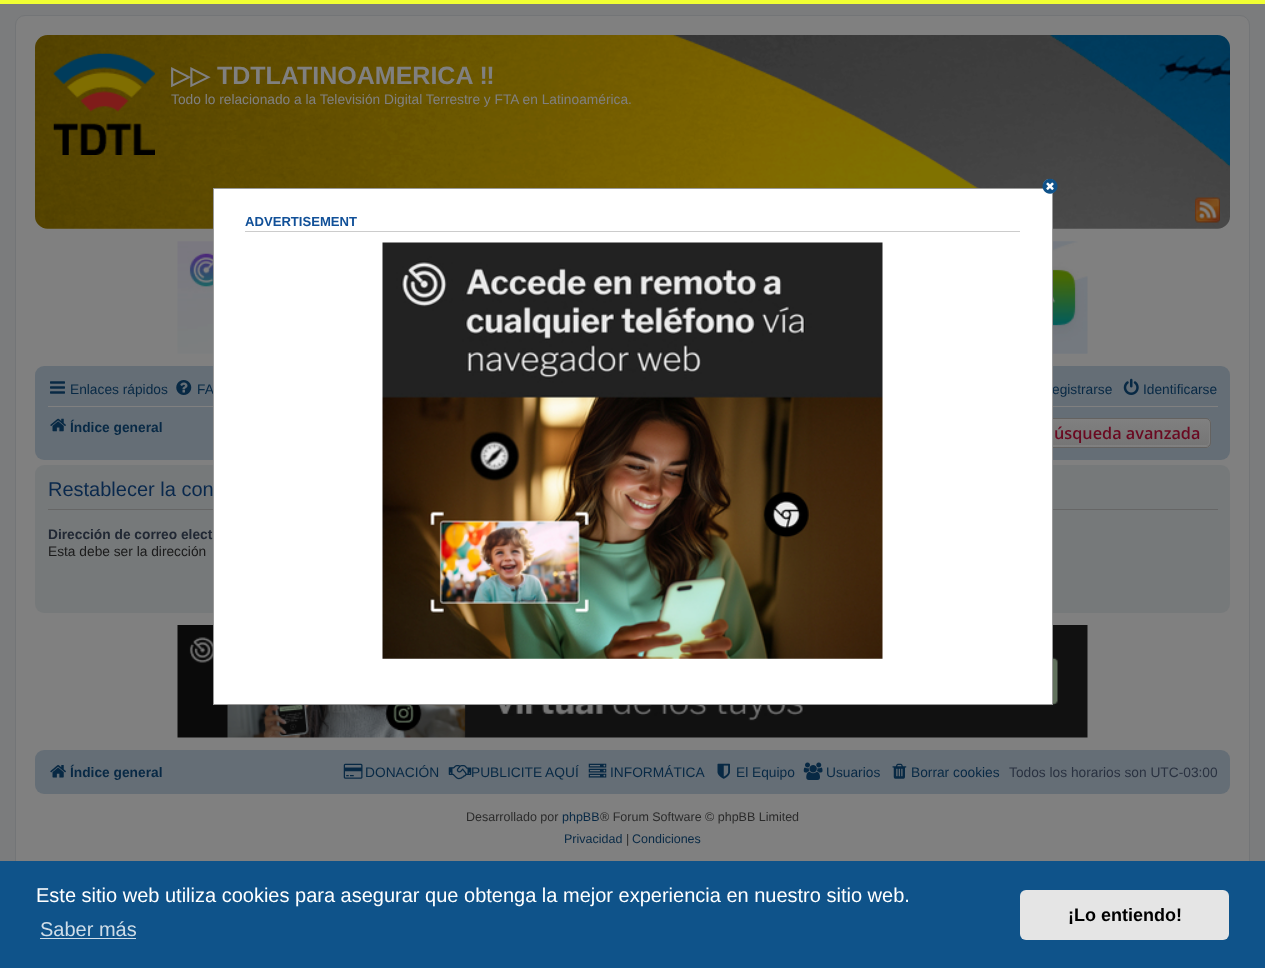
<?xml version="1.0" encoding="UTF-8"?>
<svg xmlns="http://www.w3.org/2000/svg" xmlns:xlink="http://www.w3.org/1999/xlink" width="1265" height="968">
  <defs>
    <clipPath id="clip1"><rect x="1031" y="418" width="180" height="30" rx="5" /></clipPath>
    <linearGradient id="g1" gradientUnits="userSpaceOnUse" x1="1121" y1="419" x2="1121" y2="446"><stop offset="0" stop-color="#808080" /><stop offset="1" stop-color="#757575" /></linearGradient>
    <linearGradient id="g2" gradientUnits="userSpaceOnUse" x1="1121" y1="446" x2="1121" y2="474"><stop offset="0" stop-color="#808080" /><stop offset="1" stop-color="#757575" /></linearGradient>
  </defs>
  <rect width="100%" height="100%" fill="#7b7c7d" />
  <rect x="15.5" y="15.5" width="1234" height="868" rx="9.5" fill="#808080" stroke="#737577" />
  <image x="35" y="35" width="1195" height="194" xlink:href="image1.png" />
  <rect width="1265" height="4" fill="#f1ff33" />
  <image x="53" y="53" width="102" height="102" xlink:href="image2.png" />
  <image x="1195" y="197" width="25" height="26" xlink:href="image3.png" />
  <image x="177" y="241" width="911" height="113" xlink:href="image4.png" />
  <rect x="35" y="366" width="1195" height="94" rx="9" fill="#656e76" />
  <image x="50" y="381" width="15" height="13" xlink:href="image5.png" />
  <image x="176" y="380" width="16" height="15" xlink:href="image6.png" />
  <image x="1123" y="378" width="16" height="17" xlink:href="image7.png" />
  <rect x="48" y="406" width="1170" height="1" fill="#808080" />
  <image x="50" y="418" width="16" height="14" xlink:href="image8.png" />
  <g clip-path="url(#clip1)">
    <rect x="1053" y="419" width="158" height="27" fill="url(#g1)" />
    <rect x="1053" y="446" width="158" height="2" fill="url(#g2)" />
  </g>
  <rect x="1033.5" y="419.5" width="176" height="26" rx="3.5" fill="none" stroke="#808080" />
  <rect x="1031.5" y="418.5" width="179" height="29" rx="4.5" fill="none" stroke="#646260" />
  <rect x="35" y="750" width="1195" height="44" rx="9" fill="#656e76" />
  <image x="50" y="765" width="16" height="13" xlink:href="image11.png" />
  <image x="343" y="763" width="20" height="16" xlink:href="image12.png" />
  <image x="448" y="765" width="24" height="15" xlink:href="image13.png" />
  <image x="588" y="763" width="19" height="15" xlink:href="image14.png" />
  <image x="717" y="763" width="13" height="16" xlink:href="image15.png" />
  <image x="803" y="762" width="20" height="18" xlink:href="image16.png" />
  <image x="892" y="763" width="15" height="16" xlink:href="image17.png" />
  <rect x="35" y="465" width="1195" height="148" rx="9" fill="#76797a" />
  <rect x="48" y="509" width="1170" height="1" fill="#666666" />
  <image x="177" y="625" width="911" height="113" xlink:href="image18.png" />
  <rect y="861" width="1265" height="107" fill="#0f538a" />
  <rect x="40" y="938" width="96" height="1" fill="#cfdde8" />
  <rect x="1020" y="890" width="209" height="50" rx="6" fill="#e5e5e5" />
  <text x="171" y="84" style="font-family: DejaVu Sans; font-size: 25px; font-weight: bold; fill: #808080">▷▷</text>
  <text x="217" y="84" style="font-family: Liberation Sans; font-size: 25px; font-weight: bold; fill: #808080">TDTLATINOAMERICA ‼</text>
  <text x="171" y="104" style="font-family: Liberation Sans; font-size: 13.75px; fill: #808080">Todo lo relacionado a la Televisión Digital Terrestre y FTA en Latinoamérica.</text>
  <text x="70" y="394" style="font-family: Liberation Sans; font-size: 13.75px; fill: #082945">Enlaces rápidos</text>
  <text x="197" y="394" style="font-family: Liberation Sans; font-size: 13.75px; fill: #082945">FA</text>
  <text x="1052" y="394" style="font-family: Liberation Sans; font-size: 13.75px; fill: #082945">egistrarse</text>
  <text x="1143" y="394" style="font-family: Liberation Sans; font-size: 13.75px; fill: #082945">Identificarse</text>
  <text x="70" y="432" style="font-family: Liberation Sans; font-size: 13.75px; font-weight: bold; fill: #082945">Índice general</text>
  <text x="1054" y="439" style="font-family: Open Sans; font-size: 16.25px; font-weight: 600; fill: #6a0921">úsqueda avanzada</text>
  <rect x="213.5" y="188.5" width="839" height="516" fill="#ffffff" stroke="#999999" />
  <rect x="1043" y="179" width="13" height="15" rx="6.5" fill="#ffffff" />
  <image x="1042" y="178" width="16" height="16" xlink:href="image9.png" />
  <rect x="245" y="231" width="775" height="1" fill="#cccccc" />
  <text x="245" y="226" style="font-family: Liberation Sans; font-size: 13.1px; font-weight: bold; fill: #115098">ADVERTISEMENT</text>
  <image x="382" y="242" width="501" height="417" xlink:href="image10.png" />
  <text x="70" y="777" style="font-family: Liberation Sans; font-size: 13.75px; font-weight: bold; fill: #082945">Índice general</text>
  <text x="365" y="777" style="font-family: Liberation Sans; font-size: 13.75px; fill: #082945">DONACIÓN</text>
  <text x="471" y="777" style="font-family: Liberation Sans; font-size: 13.75px; fill: #082945">PUBLICITE AQUÍ</text>
  <text x="610" y="777" style="font-family: Liberation Sans; font-size: 13.75px; fill: #082945">INFORMÁTICA</text>
  <text x="736" y="777" style="font-family: Liberation Sans; font-size: 13.75px; fill: #082945">El Equipo</text>
  <text x="826" y="777" style="font-family: Liberation Sans; font-size: 13.75px; fill: #082945">Usuarios</text>
  <text x="911" y="777" style="font-family: Liberation Sans; font-size: 13.75px; fill: #082945">Borrar cookies</text>
  <text x="1009" y="777" style="font-family: Liberation Sans; font-size: 13.75px; fill: #2a3241">Todos los horarios son UTC-03:00</text>
  <text x="466" y="821" style="font-family: Liberation Sans; font-size: 12.5px; fill: #2b2b2b">Desarrollado por</text>
  <text x="562" y="821" style="font-family: Liberation Sans; font-size: 12.5px; fill: #082945">phpBB</text>
  <text x="600" y="821" style="font-family: Liberation Sans; font-size: 12.5px; fill: #2b2b2b">® Forum Software © phpBB Limited</text>
  <text x="564" y="843" style="font-family: Liberation Sans; font-size: 12.5px; fill: #082945">Privacidad</text>
  <text x="626" y="843" style="font-family: Liberation Sans; font-size: 12.5px; fill: #2b2b2b">|</text>
  <text x="632" y="843" style="font-family: Liberation Sans; font-size: 12.5px; fill: #082945">Condiciones</text>
  <text x="48" y="496" style="font-family: Liberation Sans; font-size: 20px; fill: #09284c">Restablecer la con</text>
  <text x="48" y="539" style="font-family: Liberation Sans; font-size: 13.75px; font-weight: bold; fill: #212834">Dirección de correo elect</text>
  <text x="48" y="556" style="font-family: Liberation Sans; font-size: 13.75px; fill: #1a1a1a">Esta debe ser la dirección</text>
  <text x="36" y="902" style="font-family: Liberation Sans; font-size: 20px; fill: #ffffff">Este sitio web utiliza cookies para asegurar que obtenga la mejor experiencia en nuestro sitio web.</text>
  <text x="40" y="936" style="font-family: Liberation Sans; font-size: 20px; fill: #cfdde8">Saber más</text>
  <text x="1068" y="921" style="font-family: Liberation Sans; font-size: 18px; font-weight: bold; fill: #000000">¡Lo entiendo!</text>
</svg>
